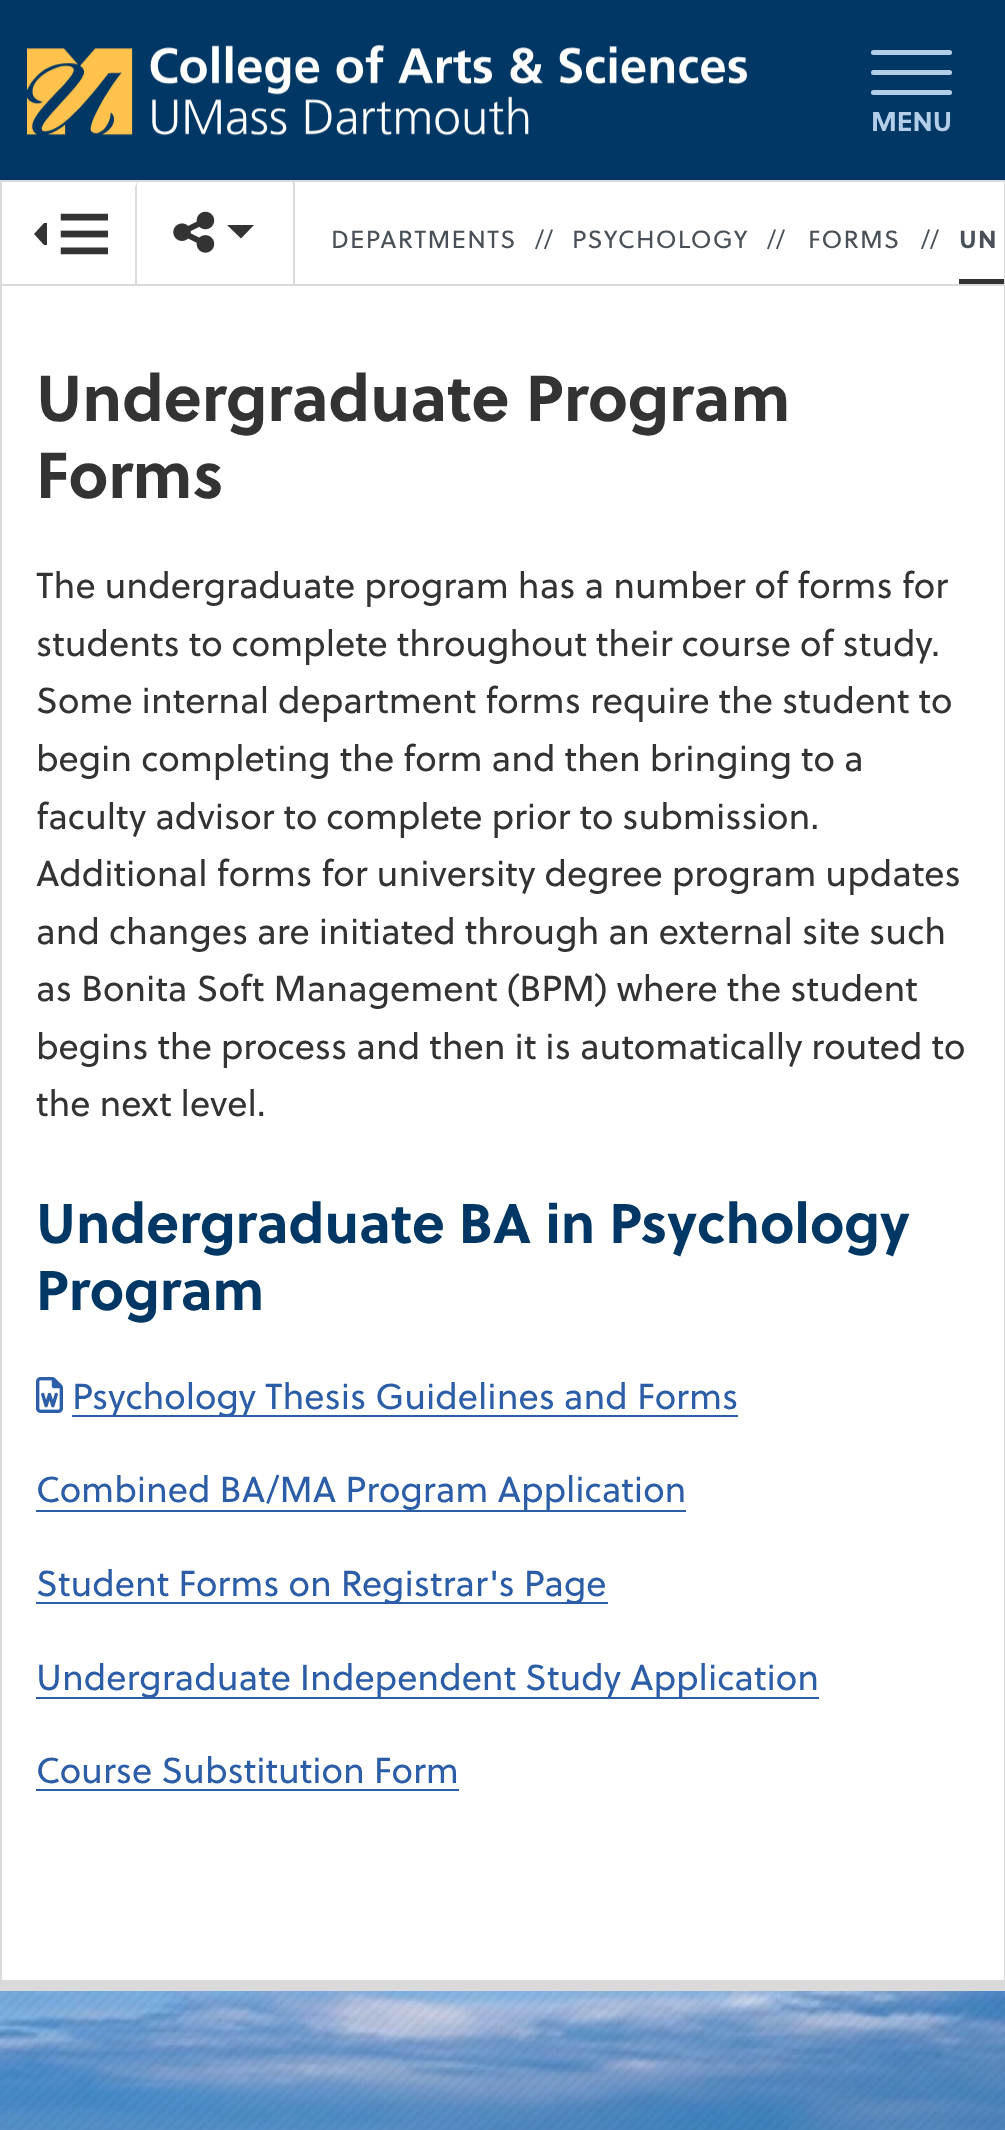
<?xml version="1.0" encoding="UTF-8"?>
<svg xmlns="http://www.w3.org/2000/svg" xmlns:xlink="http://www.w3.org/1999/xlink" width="1005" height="2130">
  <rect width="100%" height="100%" fill="#dadada" />
  <rect width="1005" height="180" fill="#003764" />
  <image x="27" y="45" width="720" height="91" xlink:href="image1.png" />
  <rect x="871" y="50" width="81" height="5" rx="2.5" fill="#b3cee9" />
  <rect x="871" y="70" width="81" height="5" rx="2.5" fill="#b3cee9" />
  <rect x="871" y="90" width="81" height="5" rx="2.5" fill="#b3cee9" />
  <rect x="2" y="182" width="1002" height="102" fill="#ffffff" />
  <path d="M 137 182 v 102 h -2 v -97 z" fill="#dadada" />
  <path d="M 44 223 l -10 11 l 10 -11 l -10 11 l 10 11 h 3 v -22 z" fill="#333333" />
  <image x="60" y="213" width="48" height="42" xlink:href="image2.png" />
  <rect x="293" y="182" width="2" height="102" fill="#dadada" />
  <image x="173" y="211" width="42" height="42" xlink:href="image3.png" />
  <path d="M 227 225 h 27 l -13 13.5 z" fill="#333333" />
  <rect x="959" y="279" width="45" height="5" fill="#333333" />
  <rect x="2" y="286" width="1002" height="1694" fill="#ffffff" />
  <image x="36" y="1377" width="27" height="36" xlink:href="image4.png" />
  <rect x="72" y="1415" width="666" height="2" fill="#2c5da7" />
  <rect x="36" y="1510" width="650" height="2" fill="#2c5da7" />
  <rect x="36" y="1602" width="572" height="2" fill="#2c5da7" />
  <rect x="36" y="1697" width="783" height="2" fill="#2c5da7" />
  <rect x="36" y="1789" width="423" height="2" fill="#2c5da7" />
  <image x="0" y="1991" width="1005" height="139" xlink:href="image5.png" />
  <image x="0" y="1991" width="1005" height="139" xlink:href="image6.png" />
  <text x="871" y="131" style="font-family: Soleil; font-size: 27px; font-weight: bold; fill: #b3cee9">MENU</text>
  <text x="331" y="248" style="font-family: Soleil; font-size: 24.75px; letter-spacing: 1.25px; fill: #495057">DEPARTMENTS</text>
  <text x="535" y="248" style="font-family: Soleil; font-size: 24.75px; letter-spacing: 1.25px; fill: #495057">//</text>
  <text x="572" y="248" style="font-family: Soleil; font-size: 24.75px; letter-spacing: 1.25px; fill: #495057">PSYCHOLOGY</text>
  <text x="767" y="248" style="font-family: Soleil; font-size: 24.75px; letter-spacing: 1.25px; fill: #495057">//</text>
  <text x="808" y="248" style="font-family: Soleil; font-size: 24.75px; letter-spacing: 1.25px; fill: #495057">FORMS</text>
  <text x="921" y="248" style="font-family: Soleil; font-size: 24.75px; letter-spacing: 1.25px; fill: #495057">//</text>
  <text x="959" y="248" style="font-family: Soleil; font-size: 24.75px; font-weight: bold; letter-spacing: 1.25px; fill: #495057">UN</text>
  <text x="36" y="421" style="font-family: Soleil; font-size: 64.6px; font-weight: bold; fill: #333333">Undergraduate Program</text>
  <text x="36" y="498" style="font-family: Soleil; font-size: 64.6px; font-weight: bold; fill: #333333">Forms</text>
  <text x="36" y="598" style="font-family: Soleil; font-size: 36px; fill: #333333">The undergraduate program has a number of forms for</text>
  <text x="36" y="656" style="font-family: Soleil; font-size: 36px; fill: #333333">students to complete throughout their course of study.</text>
  <text x="36" y="713" style="font-family: Soleil; font-size: 36px; fill: #333333">Some internal department forms require the student to</text>
  <text x="36" y="771" style="font-family: Soleil; font-size: 36px; fill: #333333">begin completing the form and then bringing to a</text>
  <text x="36" y="829" style="font-family: Soleil; font-size: 36px; fill: #333333">faculty advisor to complete prior to submission.</text>
  <text x="36" y="886" style="font-family: Soleil; font-size: 36px; fill: #333333">Additional forms for university degree program updates</text>
  <text x="36" y="944" style="font-family: Soleil; font-size: 36px; fill: #333333">and changes are initiated through an external site such</text>
  <text x="36" y="1001" style="font-family: Soleil; font-size: 36px; fill: #333333">as Bonita Soft Management (BPM) where the student</text>
  <text x="36" y="1059" style="font-family: Soleil; font-size: 36px; fill: #333333">begins the process and then it is automatically routed to</text>
  <text x="36" y="1116" style="font-family: Soleil; font-size: 36px; fill: #333333">the next level.</text>
  <text x="36" y="1243" style="font-family: Soleil; font-size: 55.75px; font-weight: bold; fill: #003764">Undergraduate BA in Psychology</text>
  <text x="36" y="1310" style="font-family: Soleil; font-size: 55.75px; font-weight: bold; fill: #003764">Program</text>
  <text x="72" y="1409" style="font-family: Soleil; font-size: 36px; fill: #2c5da7">Psychology Thesis Guidelines and Forms</text>
  <text x="36" y="1502" style="font-family: Soleil; font-size: 36px; fill: #2c5da7">Combined BA/MA Program Application</text>
  <text x="36" y="1596" style="font-family: Soleil; font-size: 36px; fill: #2c5da7">Student Forms on Registrar's Page</text>
  <text x="36" y="1690" style="font-family: Soleil; font-size: 36px; fill: #2c5da7">Undergraduate Independent Study Application</text>
  <text x="36" y="1783" style="font-family: Soleil; font-size: 36px; fill: #2c5da7">Course Substitution Form</text>
</svg>
